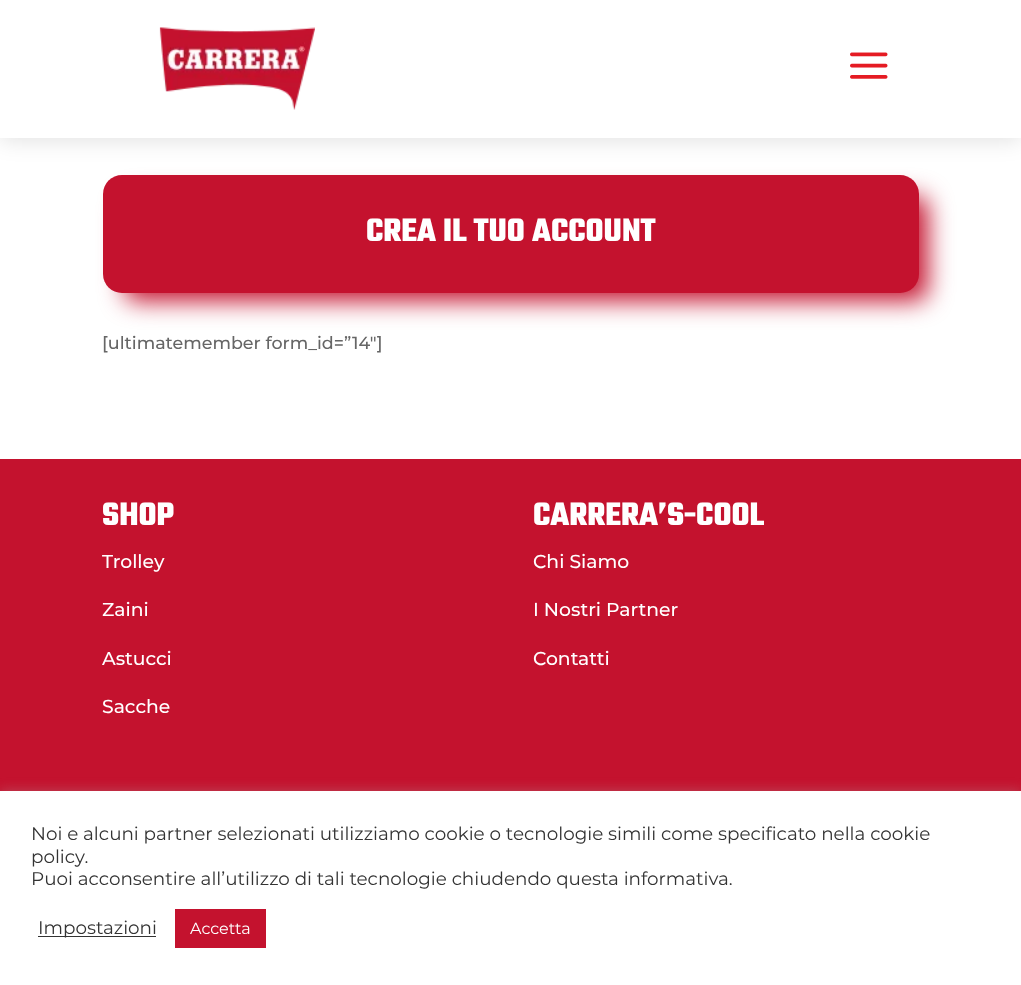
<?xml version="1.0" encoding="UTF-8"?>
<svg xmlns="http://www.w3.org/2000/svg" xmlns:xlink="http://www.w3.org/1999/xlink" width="1021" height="985">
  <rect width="100%" height="100%" fill="#ffffff" />
  <rect y="3" width="1021" height="137" fill="#000000" fill-opacity="0.12" filter="blur(11px)" />
  <rect width="1021" height="138" fill="#ffffff" />
  <image x="159" y="27" width="156" height="83" xlink:href="image1.png" />
  <image x="850" y="52" width="38" height="27" xlink:href="image2.png" />
  <rect x="124" y="196" width="804" height="105" rx="13" fill="#c4122e" filter="blur(12.5px)" />
  <rect x="103" y="175" width="816" height="118" rx="19" fill="#c4122e" />
  <rect y="459" width="1021" height="332" fill="#c4122e" />
  <rect y="790" width="1021" height="194" fill="#acabab" fill-opacity="0.3" filter="blur(6px)" />
  <rect y="791" width="1021" height="194" fill="#ffffff" />
  <rect x="38" y="936" width="118" height="1" fill="#333333" />
  <rect x="175" y="909" width="91" height="39" fill="#c4122e" />
  <text x="366" y="241" style="font-family: Teko; font-size: 35px; font-weight: bold; fill: #ffffff">CREA IL TUO ACCOUNT</text>
  <text x="102" y="349" style="font-family: Montserrat; font-size: 17.5px; font-weight: 500; fill: #666666">[ultimatemember form_id=”14″]</text>
  <text x="102" y="525" style="font-family: Teko; font-size: 35px; font-weight: bold; fill: #ffffff">SHOP</text>
  <text x="102" y="568" style="font-family: Montserrat; font-size: 18.75px; font-weight: 500; fill: #ffffff">Trolley</text>
  <text x="102" y="616" style="font-family: Montserrat; font-size: 18.75px; font-weight: 500; fill: #ffffff">Zaini</text>
  <text x="102" y="665" style="font-family: Montserrat; font-size: 18.75px; font-weight: 500; fill: #ffffff">Astucci</text>
  <text x="102" y="713" style="font-family: Montserrat; font-size: 18.75px; font-weight: 500; fill: #ffffff">Sacche</text>
  <text x="533" y="525" style="font-family: Teko; font-size: 35px; font-weight: bold; fill: #ffffff">CARRERA’S-COOL</text>
  <text x="533" y="568" style="font-family: Montserrat; font-size: 18.75px; font-weight: 500; fill: #ffffff">Chi Siamo</text>
  <text x="533" y="616" style="font-family: Montserrat; font-size: 18.75px; font-weight: 500; fill: #ffffff">I Nostri Partner</text>
  <text x="533" y="665" style="font-family: Montserrat; font-size: 18.75px; font-weight: 500; fill: #ffffff">Contatti</text>
  <text x="31" y="840" style="font-family: Montserrat; font-size: 18.35px; fill: #333333">Noi e alcuni partner selezionati utilizziamo cookie o tecnologie simili come specificato nella cookie</text>
  <text x="31" y="863" style="font-family: Montserrat; font-size: 18.35px; fill: #333333">policy.</text>
  <text x="31" y="885" style="font-family: Montserrat; font-size: 18.35px; fill: #333333">Puoi acconsentire all’utilizzo di tali tecnologie chiudendo questa informativa.</text>
  <text x="38" y="934" style="font-family: Montserrat; font-size: 18.35px; fill: #333333">Impostazioni</text>
  <text x="190" y="934" style="font-family: Montserrat; font-size: 16px; fill: #ffffff">Accetta</text>
</svg>
